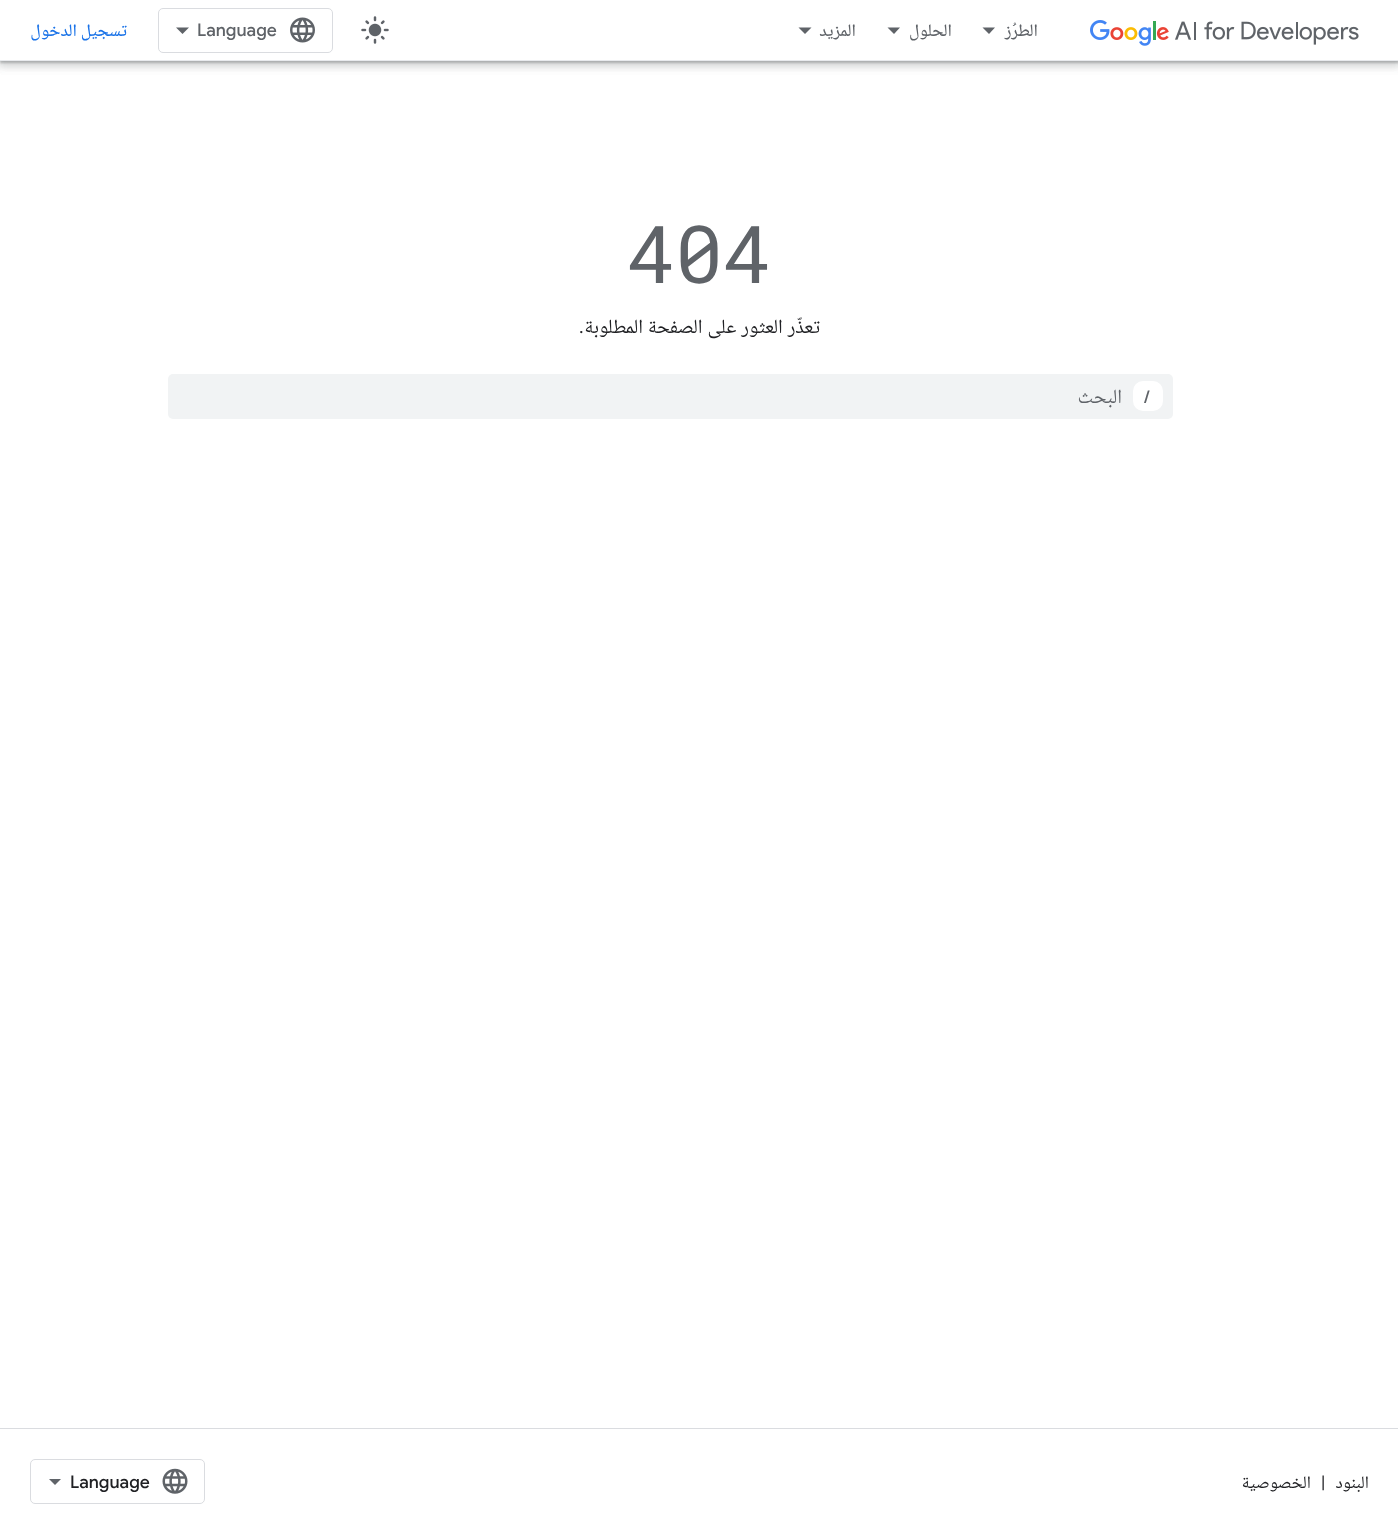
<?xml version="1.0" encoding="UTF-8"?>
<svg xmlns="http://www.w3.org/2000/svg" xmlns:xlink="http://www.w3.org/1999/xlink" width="1398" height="1533">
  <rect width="100%" height="100%" fill="#ffffff" />
  <rect x="-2" width="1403" height="66" fill="#3c4043" fill-opacity="0.15" filter="blur(4px)" />
  <rect y="1" width="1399" height="62" fill="#3c4043" fill-opacity="0.3" filter="blur(1px)" />
  <rect x="-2" y="61" width="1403" height="5" fill="#3c4043" fill-opacity="0.15" filter="blur(4px)" />
  <rect width="1398" height="60" fill="#ffffff" />
  <rect y="60" width="1398" height="1" fill="#e8eaed" />
  <image x="1090" y="20" width="269" height="26" xlink:href="image1.png" />
  <path d="M 982.5 27.5 h 12.5 l -6 6.5 z" fill="#5f6368" />
  <path d="M 887.5 27.5 h 12.5 l -6 6.5 z" fill="#5f6368" />
  <path d="M 798.5 27.5 h 13 l -6.5 6.5 z" fill="#5f6368" />
  <image x="361" y="16" width="28" height="28" xlink:href="image2.png" />
  <rect x="158.5" y="8.5" width="174" height="44" rx="4.5" fill="none" stroke="#dadce0" />
  <image x="290" y="17" width="25" height="26" xlink:href="image3.png" />
  <path d="M 182.5 34 l -6.5 -6.5 h 13 z" fill="#5f6368" />
  <rect x="168" y="374" width="1005" height="45" rx="5" fill="#f1f3f4" />
  <rect x="1133" y="381" width="30" height="30" rx="10" fill="#ffffff" />
  <rect y="1428" width="1398" height="1" fill="#dadce0" />
  <rect x="30.5" y="1459.5" width="174" height="44" rx="4.5" fill="none" stroke="#dadce0" />
  <image x="162" y="1468" width="26" height="26" xlink:href="image4.png" />
  <path d="M 55 1485 l -6 -6 h 12 z" fill="#5f6368" />
  <text x="1038" y="36" style="font-family: Noto Naskh Arabic; font-size: 17.5px; font-weight: 500; direction: rtl; fill: #5f6368">الطرُز</text>
  <text x="952" y="36" style="font-family: Noto Naskh Arabic; font-size: 17.5px; font-weight: 500; direction: rtl; fill: #5f6368">الحلول</text>
  <text x="856" y="36" style="font-family: Noto Naskh Arabic; font-size: 17.5px; font-weight: 500; direction: rtl; fill: #5f6368">المزيد</text>
  <text x="197" y="36" style="font-family: Google Sans; font-size: 17.5px; font-weight: 500; fill: #5f6368">Language</text>
  <text x="127" y="36" style="font-family: Noto Naskh Arabic; font-size: 17.5px; font-weight: 500; direction: rtl; fill: #1a73e8">تسجيل الدخول</text>
  <text x="627" y="283" style="font-family: Roboto Mono; font-size: 80px; fill: #5f6368">404</text>
  <text x="820" y="333" word-spacing="0.5" style="font-family: Noto Naskh Arabic; font-size: 20px; direction: rtl; fill: #202124">تعذّر العثور على الصفحة المطلوبة</text>
  <text x="584" y="333" style="font-family: Roboto; font-size: 20px; direction: rtl; fill: #202124">.</text>
  <text x="1144" y="403" style="font-family: Google Sans; font-size: 17.5px; font-weight: 500; fill: #5f6368">/</text>
  <text x="1122" y="403" style="font-family: Noto Naskh Arabic; font-size: 20px; direction: rtl; fill: #5f6368">البحث</text>
  <text x="1369" y="1488" style="font-family: Noto Naskh Arabic; font-size: 17.5px; direction: rtl; fill: #202124">البنود</text>
  <text x="1321" y="1488" style="font-family: Roboto; font-size: 17.5px; fill: #202124">|</text>
  <text x="1311" y="1488" style="font-family: Noto Naskh Arabic; font-size: 17.5px; direction: rtl; fill: #202124">الخصوصية</text>
  <text x="70" y="1488" style="font-family: Google Sans; font-size: 17.5px; font-weight: 500; fill: #202124">Language</text>
</svg>
